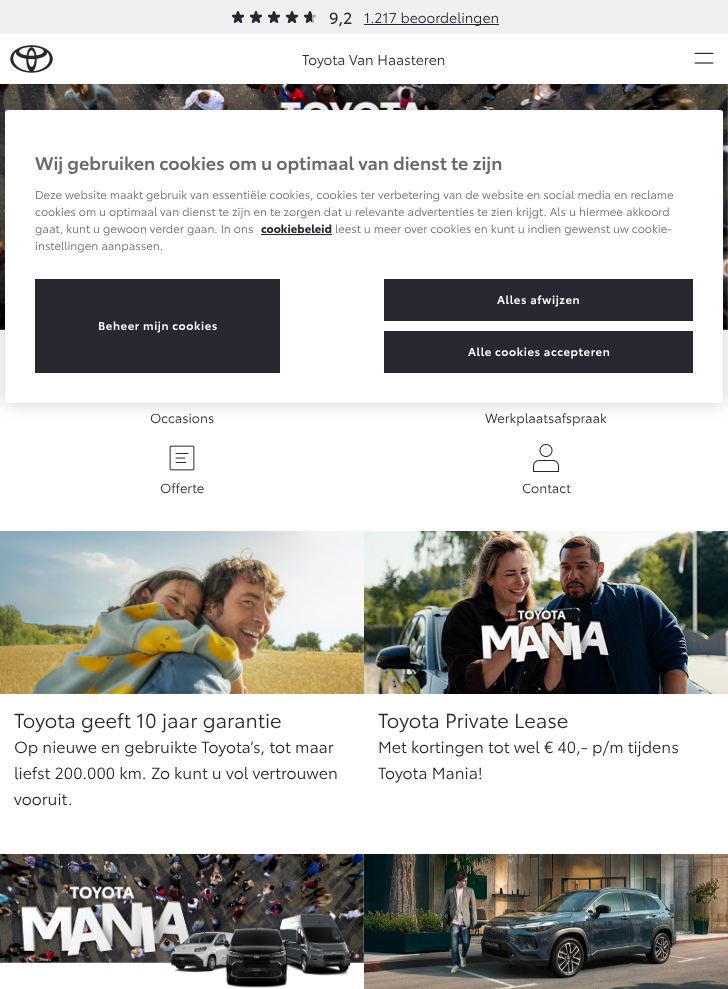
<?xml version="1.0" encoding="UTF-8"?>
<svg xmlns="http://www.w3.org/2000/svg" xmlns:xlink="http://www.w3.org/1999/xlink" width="728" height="989">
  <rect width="100%" height="100%" fill="#ffffff" />
  <rect width="728" height="34" fill="#f0f0f0" />
  <image x="232" y="11" width="84" height="12" xlink:href="image2.png" />
  <image x="231" y="11" width="81" height="12" xlink:href="image1.png" />
  <rect x="364" y="24" width="135" height="1" fill="#282830" />
  <image x="10" y="45" width="43" height="28" xlink:href="image3.png" />
  <image x="694" y="52" width="20" height="12" xlink:href="image4.png" />
  <image x="0" y="84" width="728" height="246" xlink:href="image5.png" />
  <rect x="5" y="110" width="718" height="293" rx="2.5" fill="#000000" fill-opacity="0.2" filter="blur(9px)" />
  <rect x="5" y="110" width="718" height="293" rx="2.5" fill="#ffffff" />
  <rect x="261" y="234" width="71" height="1" fill="#282830" />
  <rect x="35" y="279" width="245" height="94" fill="#282830" />
  <rect x="384" y="279" width="309" height="42" fill="#282830" />
  <rect x="384" y="331" width="309" height="42" fill="#282830" />
  <image x="169" y="445" width="26" height="26" xlink:href="image6.png" />
  <image x="533" y="444" width="26" height="28" xlink:href="image7.png" />
  <image x="0" y="531" width="364" height="163" xlink:href="image8.png" />
  <image x="364" y="531" width="364" height="163" xlink:href="image9.png" />
  <image x="0" y="854" width="364" height="134" xlink:href="image10.png" />
  <image x="364" y="854" width="364" height="135" xlink:href="image11.png" />
  <text x="329" y="24" style="font-family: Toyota; font-size: 16px; fill: #282830">9,2</text>
  <text x="364" y="23" style="font-family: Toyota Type; font-size: 14px; fill: #282830">1.217 beoordelingen</text>
  <text x="302" y="65" style="font-family: Toyota Type; font-size: 14px; fill: #282830">Toyota Van Haasteren</text>
  <text x="35" y="170" style="font-family: Toyota Type; font-size: 18px; font-weight: 600; fill: #696969">Wij gebruiken cookies om u optimaal van dienst te zijn</text>
  <text x="35" y="199" style="font-family: Toyota Type; font-size: 11.38px; fill: #696969">Deze website maakt gebruik van essentiële cookies, cookies ter verbetering van de website en social media en reclame</text>
  <text x="35" y="216" style="font-family: Toyota Type; font-size: 11.38px; fill: #696969">cookies om u optimaal van dienst te zijn en te zorgen dat u relevante advertenties te zien krijgt. Als u hiermee akkoord</text>
  <text x="35" y="233" style="font-family: Toyota Type; font-size: 11.38px; fill: #696969">gaat, kunt u gewoon verder gaan. In ons</text>
  <text x="261" y="233" style="font-family: Toyota; font-size: 11.38px; font-weight: bold; fill: #282830">cookiebeleid</text>
  <text x="335" y="233" style="font-family: Toyota Type; font-size: 11.38px; fill: #696969">leest u meer over cookies en kunt u indien gewenst uw cookie-</text>
  <text x="35" y="250" style="font-family: Toyota Type; font-size: 11.38px; fill: #696969">instellingen aanpassen.</text>
  <text x="98" y="330" style="font-family: Toyota Type; font-size: 11.38px; font-weight: 600; letter-spacing: 0.6px; fill: #ffffff">Beheer mijn cookies</text>
  <text x="497" y="304" style="font-family: Toyota Type; font-size: 11.38px; font-weight: 600; letter-spacing: 0.6px; fill: #ffffff">Alles afwijzen</text>
  <text x="468" y="356" style="font-family: Toyota Type; font-size: 11.38px; font-weight: 600; letter-spacing: 0.6px; fill: #ffffff">Alle cookies accepteren</text>
  <text x="150" y="423" style="font-family: Toyota Type; font-size: 13px; fill: #282830">Occasions</text>
  <text x="485" y="423" style="font-family: Toyota Type; font-size: 13px; fill: #282830">Werkplaatsafspraak</text>
  <text x="160" y="493" style="font-family: Toyota Type; font-size: 13px; fill: #282830">Offerte</text>
  <text x="522" y="493" style="font-family: Toyota Type; font-size: 13px; fill: #282830">Contact</text>
  <text x="14" y="728" style="font-family: Toyota Type; font-size: 20px; fill: #282830">Toyota geeft 10 jaar garantie</text>
  <text x="14" y="753" style="font-family: Toyota Type; font-size: 16px; fill: #282828">Op nieuwe en gebruikte Toyota’s, tot maar</text>
  <text x="14" y="779" style="font-family: Toyota Type; font-size: 16px; fill: #282828">liefst 200.000 km. Zo kunt u vol vertrouwen</text>
  <text x="14" y="805" style="font-family: Toyota Type; font-size: 16px; fill: #282828">vooruit.</text>
  <text x="378" y="728" style="font-family: Toyota Type; font-size: 20px; fill: #282830">Toyota Private Lease</text>
  <text x="378" y="753" style="font-family: Toyota Type; font-size: 16px; fill: #282828">Met kortingen tot wel € 40,- p/m tijdens</text>
  <text x="378" y="779" style="font-family: Toyota Type; font-size: 16px; fill: #282828">Toyota Mania!</text>
</svg>
